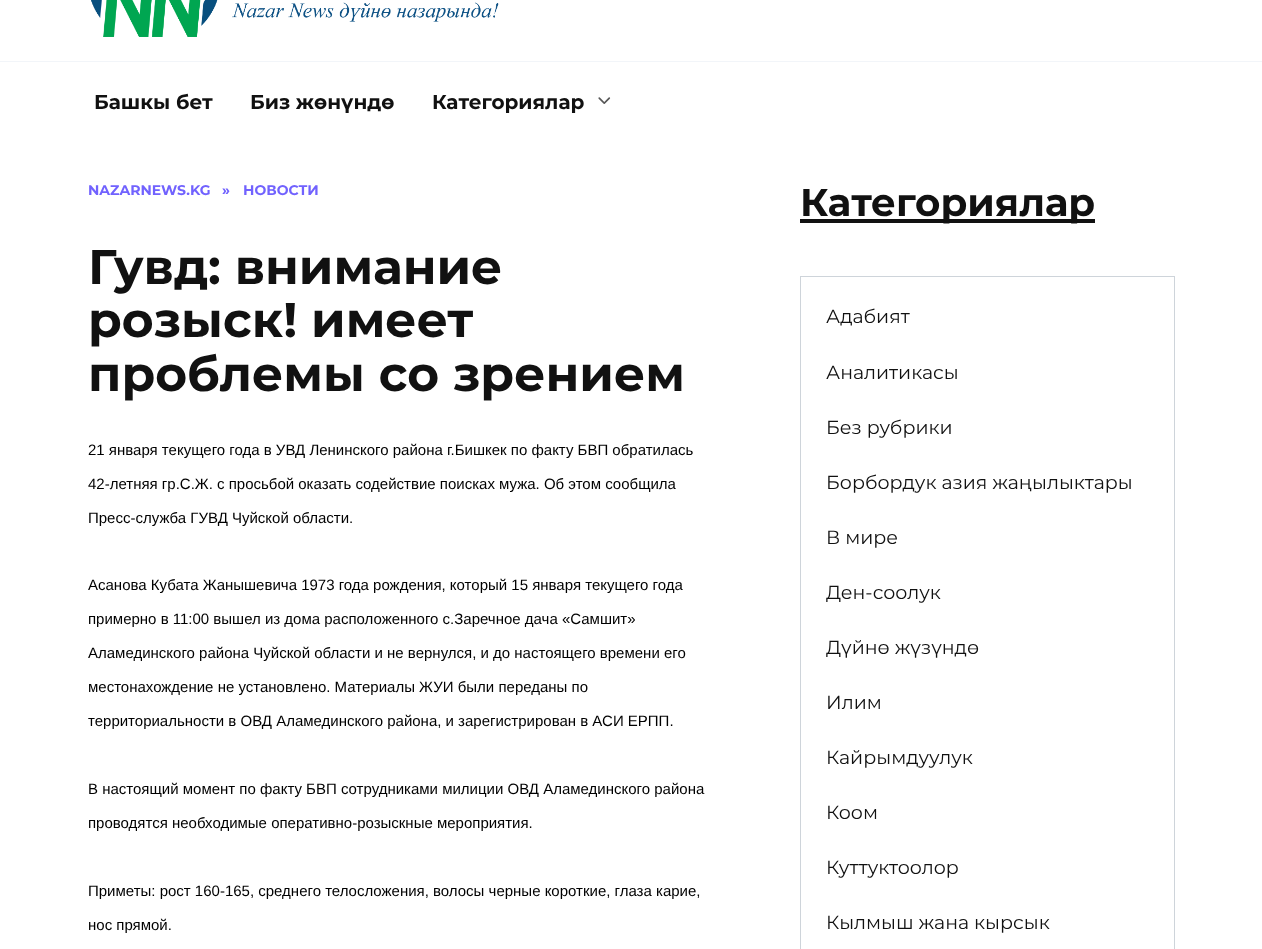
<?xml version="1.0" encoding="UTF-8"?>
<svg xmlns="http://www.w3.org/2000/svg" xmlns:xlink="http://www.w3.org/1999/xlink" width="1262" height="949">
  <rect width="100%" height="100%" fill="#ffffff" />
  <rect y="61" width="1262" height="1" fill="#f2f5f9" />
  <image x="91" y="0" width="408" height="37" xlink:href="image1.png" />
  <rect x="800" y="219" width="295" height="4" fill="#111111" />
  <rect x="800.5" y="276.5" width="374" height="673" fill="none" stroke="#ced4da" />
  <text x="94" y="109" style="font-family: Montserrat; font-size: 20px; font-weight: bold; fill: #111111">Башкы бет</text>
  <text x="250" y="109" style="font-family: Montserrat; font-size: 20px; font-weight: bold; fill: #111111">Биз жөнүндө</text>
  <text x="432" y="109" style="font-family: Montserrat; font-size: 20px; font-weight: bold; fill: #111111">Категориялар</text>
  <text x="594" y="109" style="font-family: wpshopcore; font-size: 20px; fill: #585858">﹀</text>
  <text x="88" y="195" style="font-family: Montserrat; font-size: 14px; font-weight: bold; fill: #7162fe">NAZARNEWS.KG</text>
  <text x="222" y="195" style="font-family: Montserrat; font-size: 14px; font-weight: bold; fill: #7162fe">»</text>
  <text x="243" y="195" style="font-family: Montserrat; font-size: 14px; font-weight: bold; fill: #7162fe">НОВОСТИ</text>
  <text x="88" y="284" style="font-family: Montserrat; font-size: 48.75px; font-weight: bold; fill: #111111">Гувд: внимание</text>
  <text x="88" y="337" style="font-family: Montserrat; font-size: 48.75px; font-weight: bold; fill: #111111">розыск! имеет</text>
  <text x="88" y="391" style="font-family: Montserrat; font-size: 48.75px; font-weight: bold; fill: #111111">проблемы со зрением</text>
  <text x="88" y="455" style="font-family: Liberation Sans; font-size: 15px; fill: #000000">21 января текущего года в УВД Ленинского района г.Бишкек по факту БВП обратилась</text>
  <text x="88" y="489" style="font-family: Liberation Sans; font-size: 15px; fill: #000000">42-летняя гр.С.Ж. с просьбой оказать содействие поисках мужа. Об этом сообщила</text>
  <text x="88" y="523" style="font-family: Liberation Sans; font-size: 15px; fill: #000000">Пресс-служба ГУВД Чуйской области.</text>
  <text x="88" y="590" style="font-family: Liberation Sans; font-size: 15px; fill: #000000">Асанова Кубата Жанышевича 1973 года рождения, который 15 января текущего года</text>
  <text x="88" y="624" style="font-family: Liberation Sans; font-size: 15px; fill: #000000">примерно в 11:00 вышел из дома расположенного с.Заречное дача «Самшит»</text>
  <text x="88" y="658" style="font-family: Liberation Sans; font-size: 15px; fill: #000000">Аламединского района Чуйской области и не вернулся, и до настоящего времени его</text>
  <text x="88" y="692" style="font-family: Liberation Sans; font-size: 15px; fill: #000000">местонахождение не установлено. Материалы ЖУИ были переданы по</text>
  <text x="88" y="726" style="font-family: Liberation Sans; font-size: 15px; fill: #000000">территориальности в ОВД Аламединского района, и зарегистрирован в АСИ ЕРПП.</text>
  <text x="88" y="794" style="font-family: Liberation Sans; font-size: 15px; fill: #000000">В настоящий момент по факту БВП сотрудниками милиции ОВД Аламединского района</text>
  <text x="88" y="828" style="font-family: Liberation Sans; font-size: 15px; fill: #000000">проводятся необходимые оперативно-розыскные мероприятия.</text>
  <text x="88" y="896" style="font-family: Liberation Sans; font-size: 15px; fill: #000000">Приметы: рост 160-165, среднего телосложения, волосы черные короткие, глаза карие,</text>
  <text x="88" y="930" style="font-family: Liberation Sans; font-size: 15px; fill: #000000">нос прямой.</text>
  <text x="800" y="216" style="font-family: Montserrat; font-size: 38.75px; font-weight: bold; fill: #111111">Категориялар</text>
  <text x="826" y="323" style="font-family: Montserrat; font-size: 19px; fill: #111111">Адабият</text>
  <text x="826" y="379" style="font-family: Montserrat; font-size: 19px; fill: #111111">Аналитикасы</text>
  <text x="826" y="434" style="font-family: Montserrat; font-size: 19px; fill: #111111">Без рубрики</text>
  <text x="826" y="489" style="font-family: Montserrat; font-size: 19px; fill: #111111">Борбордук азия жаңылыктары</text>
  <text x="826" y="544" style="font-family: Montserrat; font-size: 19px; fill: #111111">В мире</text>
  <text x="826" y="599" style="font-family: Montserrat; font-size: 19px; fill: #111111">Ден-соолук</text>
  <text x="826" y="654" style="font-family: Montserrat; font-size: 19px; fill: #111111">Дүйнө жүзүндө</text>
  <text x="826" y="709" style="font-family: Montserrat; font-size: 19px; fill: #111111">Илим</text>
  <text x="826" y="764" style="font-family: Montserrat; font-size: 19px; fill: #111111">Кайрымдуулук</text>
  <text x="826" y="819" style="font-family: Montserrat; font-size: 19px; fill: #111111">Коом</text>
  <text x="826" y="874" style="font-family: Montserrat; font-size: 19px; fill: #111111">Куттуктоолор</text>
  <text x="826" y="929" style="font-family: Montserrat; font-size: 19px; fill: #111111">Кылмыш жана кырсык</text>
</svg>
